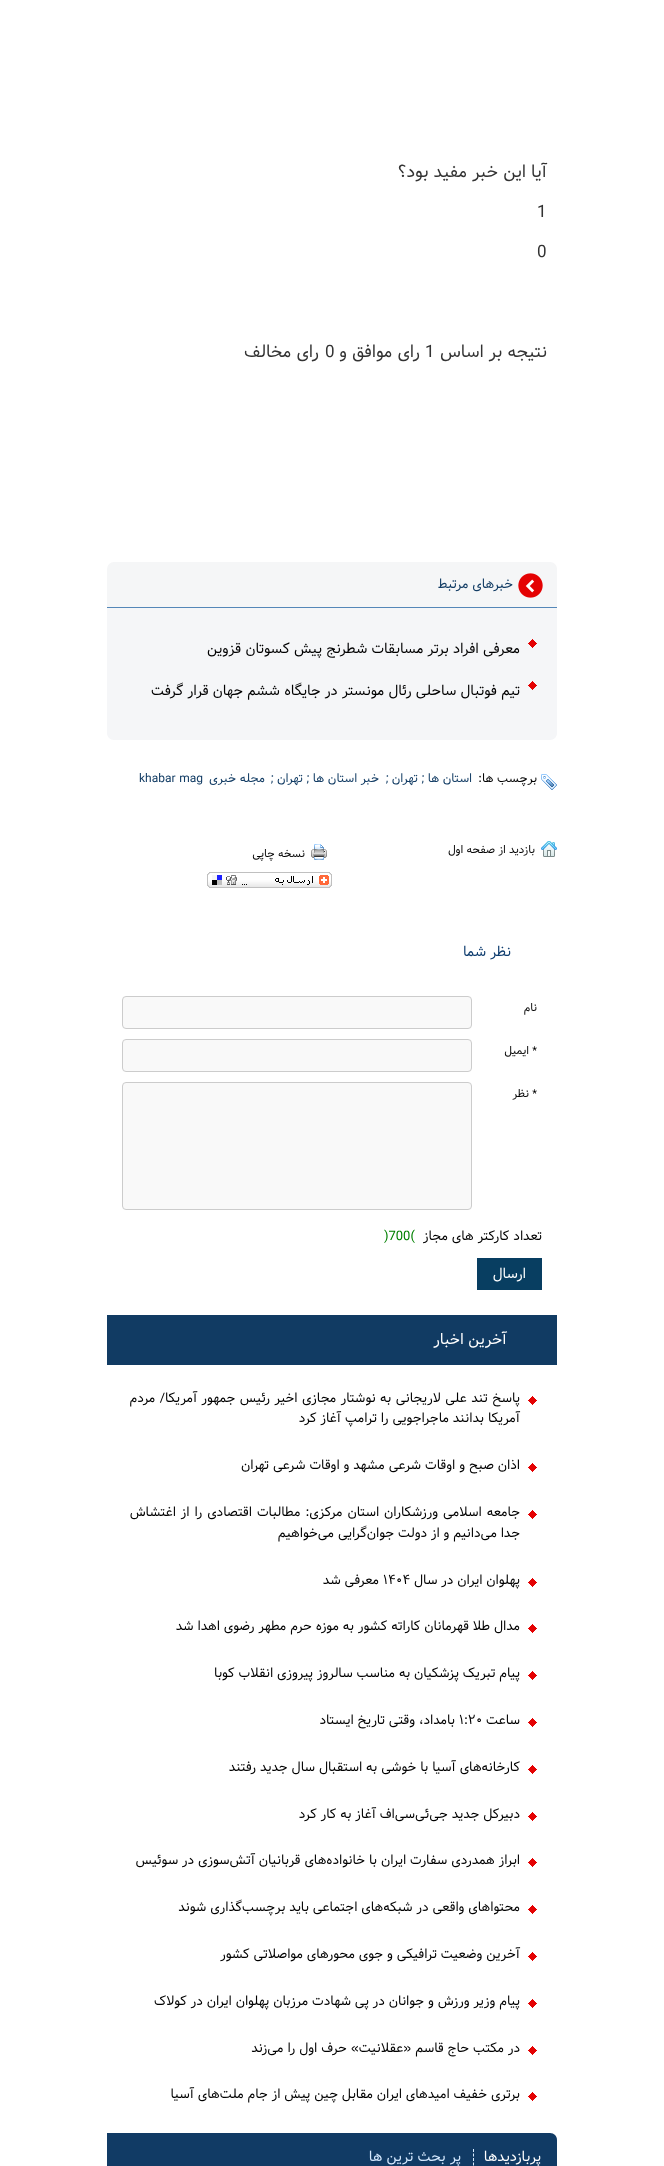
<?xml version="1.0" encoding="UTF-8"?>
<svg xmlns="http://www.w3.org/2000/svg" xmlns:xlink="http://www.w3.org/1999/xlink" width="664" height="2166">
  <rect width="100%" height="100%" fill="#ffffff" />
  <image x="107" y="562" width="450" height="46" xlink:href="image1.png" />
  <image x="518" y="562" width="39" height="36" xlink:href="image2.png" />
  <path d="M 107 608 h 450 v 125 c 0 4 -3 7 -7 7 h -436 c -4 0 -7 -3 -7 -7 z" fill="#f5f6f8" />
  <image x="528" y="639" width="9" height="9" xlink:href="image3.png" />
  <image x="528" y="681" width="9" height="9" xlink:href="image3.png" />
  <image x="541" y="774" width="16" height="16" xlink:href="image4.png" />
  <image x="541" y="841" width="16" height="16" xlink:href="image5.png" />
  <image x="311" y="844" width="16" height="16" xlink:href="image6.png" />
  <image x="207" y="872" width="125" height="16" xlink:href="image7.png" />
  <rect x="122.5" y="996.5" width="349" height="32" rx="3.5" fill="#f9f9f9" stroke="#cccccc" />
  <rect x="122.5" y="1039.5" width="349" height="32" rx="3.5" fill="#f9f9f9" stroke="#cccccc" />
  <rect x="122.5" y="1082.5" width="349" height="127" rx="3.5" fill="#f9f9f9" stroke="#cccccc" />
  <rect x="477" y="1258" width="65" height="32" fill="#083e61" />
  <rect x="107" y="1315" width="450" height="50" fill="#113b63" />
  <image x="528" y="1396" width="9" height="9" xlink:href="image8.png" />
  <image x="528" y="1463" width="9" height="9" xlink:href="image8.png" />
  <image x="528" y="1510" width="9" height="9" xlink:href="image8.png" />
  <image x="528" y="1578" width="9" height="9" xlink:href="image8.png" />
  <image x="528" y="1624" width="9" height="9" xlink:href="image8.png" />
  <image x="528" y="1671" width="9" height="9" xlink:href="image8.png" />
  <image x="528" y="1718" width="9" height="9" xlink:href="image8.png" />
  <image x="528" y="1765" width="9" height="9" xlink:href="image8.png" />
  <image x="528" y="1812" width="9" height="9" xlink:href="image8.png" />
  <image x="528" y="1858" width="9" height="9" xlink:href="image8.png" />
  <image x="528" y="1905" width="9" height="9" xlink:href="image8.png" />
  <image x="528" y="1952" width="9" height="9" xlink:href="image8.png" />
  <image x="528" y="1999" width="9" height="9" xlink:href="image8.png" />
  <image x="528" y="2046" width="9" height="9" xlink:href="image8.png" />
  <image x="528" y="2092" width="9" height="9" xlink:href="image8.png" />
  <path d="M 107 2133 h 443 c 4 0 7 3 7 7 v 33 h -450 z" fill="#113b65" />
  <path d="M 473.5 2149 v 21" fill="none" stroke="#d7ebff" stroke-dasharray="3 1.5" />
  <text x="547" y="177" style="font-family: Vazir; font-size: 17px; direction: rtl; fill: #333333">آیا این خبر مفید بود؟</text>
  <text x="537" y="217" style="font-family: Vazir; font-size: 17px; fill: #333333">1</text>
  <text x="537" y="257" style="font-family: Vazir; font-size: 17px; fill: #333333">0</text>
  <text x="547" y="357" style="font-family: Vazir; font-size: 17px; direction: rtl; fill: #333333">نتیجه بر اساس</text>
  <text x="425" y="357" style="font-family: Vazir; font-size: 17px; fill: #333333">1</text>
  <text x="420" y="357" style="font-family: Vazir; font-size: 17px; direction: rtl; fill: #333333">رای موافق و</text>
  <text x="325" y="357" style="font-family: Vazir; font-size: 17px; fill: #333333">0</text>
  <text x="319" y="357" style="font-family: Vazir; font-size: 17px; direction: rtl; fill: #333333">رای مخالف</text>
  <text x="513" y="588" style="font-family: Vazir; font-size: 13px; direction: rtl; fill: #123c64">خبرهای مرتبط</text>
  <text x="520" y="653" style="font-family: 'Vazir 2'; font-size: 14px; direction: rtl; fill: #000000">معرفی افراد برتر مسابقات شطرنج پیش کسوتان قزوین</text>
  <text x="520" y="695" style="font-family: 'Vazir 2'; font-size: 14px; direction: rtl; fill: #000000">تیم فوتبال ساحلی رئال مونستر در جایگاه ششم جهان قرار گرفت</text>
  <text x="537" y="782" style="font-family: 'Vazir 2'; font-size: 12px; direction: rtl; fill: #000000">برچسب ها:</text>
  <text x="472" y="782" style="font-family: 'Vazir 2'; font-size: 12px; direction: rtl; fill: #123c64">استان ها ; تهران ;</text>
  <text x="379" y="782" style="font-family: 'Vazir 2'; font-size: 12px; direction: rtl; fill: #123c64">خبر استان ها ; تهران ;</text>
  <text x="265" y="782" style="font-family: 'Vazir 2'; font-size: 12px; direction: rtl; fill: #123c64">مجله خبری</text>
  <text x="139" y="782" style="font-family: 'Vazir 2'; font-size: 12px; fill: #123c64">khabar mag</text>
  <text x="535" y="853" style="font-family: 'Vazir 2'; font-size: 11px; direction: rtl; fill: #000000">بازدید از صفحه اول</text>
  <text x="305" y="857" style="font-family: 'Vazir 2'; font-size: 11px; direction: rtl; fill: #000000">نسخه چاپی</text>
  <text x="511" y="956" style="font-family: Vazir; font-size: 14px; direction: rtl; fill: #0f3d6f">نظر شما</text>
  <text x="537" y="1011" style="font-family: 'Vazir 2'; font-size: 11px; direction: rtl; fill: #000000">نام</text>
  <text x="537" y="1054" style="font-family: 'Vazir 2'; font-size: 11px; direction: rtl; fill: #000000">* ایمیل</text>
  <text x="537" y="1097" style="font-family: 'Vazir 2'; font-size: 11px; direction: rtl; fill: #000000">* نظر</text>
  <text x="542" y="1240" style="font-family: 'Vazir 2'; font-size: 13px; direction: rtl; fill: #000000">تعداد کارکتر های مجاز</text>
  <text x="384" y="1240" style="font-family: 'Vazir 2'; font-size: 13px; fill: #008000">)700(</text>
  <text x="526" y="1278" style="font-family: Vazir; font-size: 14px; direction: rtl; fill: #ffffff">ارسال</text>
  <text x="507" y="1344" style="font-family: Vazir; font-size: 15px; direction: rtl; fill: #ffffff">آخرین اخبار</text>
  <text x="520" y="1402" word-spacing="0.5" style="font-family: 'Vazir 2'; font-size: 13px; direction: rtl; fill: #000000">پاسخ تند علی لاریجانی به نوشتار مجازی اخیر رئیس جمهور آمریکا/ مردم</text>
  <text x="520" y="1422" style="font-family: 'Vazir 2'; font-size: 13px; direction: rtl; fill: #000000">آمریکا بدانند ماجراجویی را ترامپ آغاز کرد</text>
  <text x="520" y="1469" style="font-family: 'Vazir 2'; font-size: 13px; direction: rtl; fill: #000000">اذان صبح و اوقات شرعی مشهد و اوقات شرعی تهران</text>
  <text x="520" y="1516" word-spacing="1" style="font-family: 'Vazir 2'; font-size: 13px; direction: rtl; fill: #000000">جامعه اسلامی ورزشکاران استان مرکزی: مطالبات اقتصادی را از اغتشاش</text>
  <text x="520" y="1537" style="font-family: 'Vazir 2'; font-size: 13px; direction: rtl; fill: #000000">جدا می‌دانیم و از دولت جوان‌گرایی می‌خواهیم</text>
  <text x="520" y="1584" style="font-family: 'Vazir 2'; font-size: 13px; direction: rtl; fill: #000000">پهلوان ایران در سال</text>
  <text x="383" y="1584" style="font-family: 'Vazir 2'; font-size: 13px; fill: #000000">۱۴۰۴</text>
  <text x="379" y="1584" style="font-family: 'Vazir 2'; font-size: 13px; direction: rtl; fill: #000000">معرفی شد</text>
  <text x="520" y="1630" style="font-family: 'Vazir 2'; font-size: 13px; direction: rtl; fill: #000000">مدال طلا قهرمانان کاراته کشور به موزه حرم مطهر رضوی اهدا شد</text>
  <text x="520" y="1677" style="font-family: 'Vazir 2'; font-size: 13px; direction: rtl; fill: #000000">پیام تبریک پزشکیان به مناسب سالروز پیروزی انقلاب کوبا</text>
  <text x="520" y="1724" style="font-family: 'Vazir 2'; font-size: 13px; direction: rtl; fill: #000000">ساعت</text>
  <text x="459" y="1724" style="font-family: 'Vazir 2'; font-size: 13px; fill: #000000">۱:۲۰</text>
  <text x="455" y="1724" style="font-family: 'Vazir 2'; font-size: 13px; direction: rtl; fill: #000000">بامداد، وقتی تاریخ ایستاد</text>
  <text x="520" y="1771" style="font-family: 'Vazir 2'; font-size: 13px; direction: rtl; fill: #000000">کارخانه‌های آسیا با خوشی به استقبال سال جدید رفتند</text>
  <text x="520" y="1818" style="font-family: 'Vazir 2'; font-size: 13px; direction: rtl; fill: #000000">دبیرکل جدید جی‌ئی‌سی‌اف آغاز به کار کرد</text>
  <text x="520" y="1864" style="font-family: 'Vazir 2'; font-size: 13px; direction: rtl; fill: #000000">ابراز همدردی سفارت ایران با خانواده‌های قربانیان آتش‌سوزی در سوئیس</text>
  <text x="520" y="1911" style="font-family: 'Vazir 2'; font-size: 13px; direction: rtl; fill: #000000">محتواهای واقعی در شبکه‌های اجتماعی باید برچسب‌گذاری شوند</text>
  <text x="520" y="1958" style="font-family: 'Vazir 2'; font-size: 13px; direction: rtl; fill: #000000">آخرین وضعیت ترافیکی و جوی محور‌های مواصلاتی کشور</text>
  <text x="520" y="2005" style="font-family: 'Vazir 2'; font-size: 13px; direction: rtl; fill: #000000">پیام وزیر ورزش و جوانان در پی شهادت مرزبان پهلوان ایران در کولاک</text>
  <text x="520" y="2052" style="font-family: 'Vazir 2'; font-size: 13px; direction: rtl; fill: #000000">در مکتب حاج قاسم «عقلانیت» حرف اول را می‌زند</text>
  <text x="520" y="2098" style="font-family: 'Vazir 2'; font-size: 13px; direction: rtl; fill: #000000">برتری خفیف امیدهای ایران مقابل چین پیش از جام ملت‌های آسیا</text>
  <text x="541" y="2161" style="font-family: Vazir; font-size: 14px; direction: rtl; fill: #ffffff">پربازدیدها</text>
  <text x="461" y="2161" style="font-family: Vazir; font-size: 14px; direction: rtl; fill: #d5e9ff">پر بحث ترین ها</text>
</svg>
